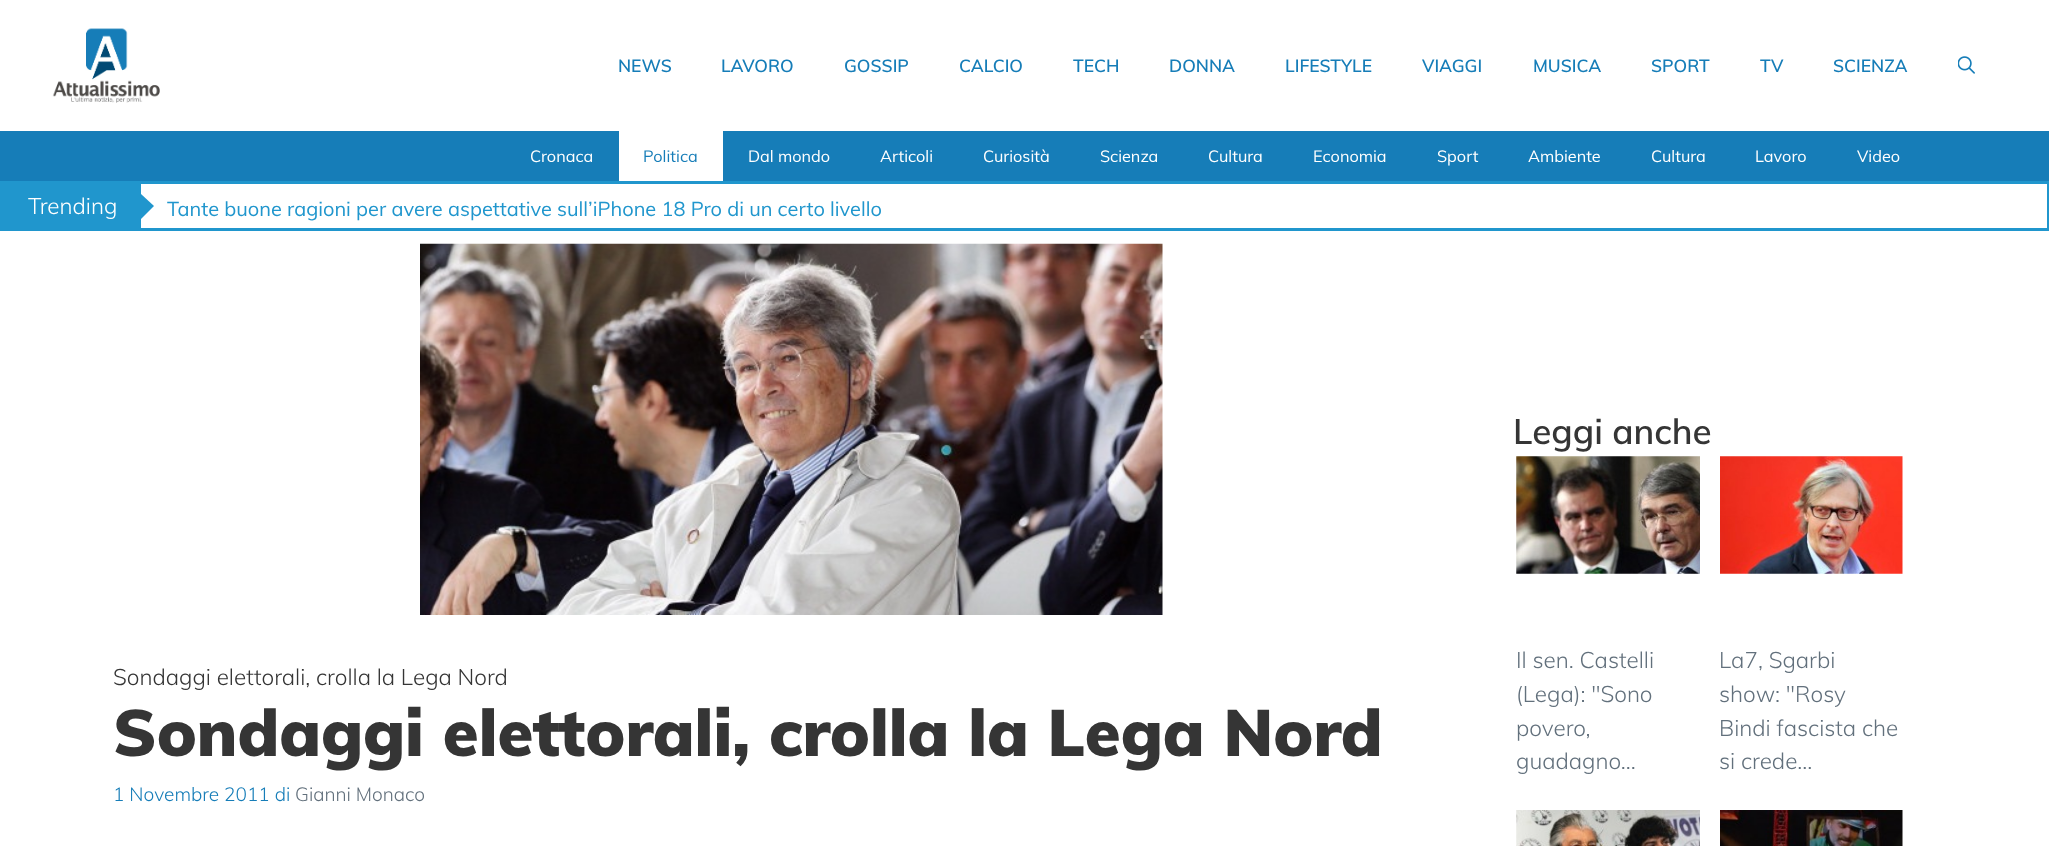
<?xml version="1.0" encoding="UTF-8"?>
<svg xmlns="http://www.w3.org/2000/svg" xmlns:xlink="http://www.w3.org/1999/xlink" width="2049" height="846">
  <rect width="100%" height="100%" fill="#ffffff" />
  <image x="52" y="28" width="108" height="75" xlink:href="image1.png" />
  <image x="1958" y="56" width="17" height="18" xlink:href="image2.png" />
  <rect y="131" width="2049" height="50" fill="#167db8" />
  <rect x="619" y="131" width="104" height="50" fill="#ffffff" />
  <rect x="1.5" y="182.5" width="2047" height="47" fill="none" stroke="#2096cd" stroke-width="3" />
  <rect x="3" y="184" width="138" height="44" fill="#2096cd" />
  <path d="M 141 219 v -25 l 13 12 z" fill="#2096cd" />
  <image x="420" y="243" width="743" height="372" xlink:href="image3.png" />
  <image x="1516" y="456" width="184" height="118" xlink:href="image4.png" />
  <image x="1720" y="456" width="183" height="118" xlink:href="image5.png" />
  <image x="1516" y="810" width="184" height="36" xlink:href="image6.png" />
  <image x="1720" y="810" width="183" height="36" xlink:href="image7.png" />
  <text x="618" y="72" style="font-family: Muli; font-size: 17.5px; font-weight: 600; fill: #167db8">NEWS</text>
  <text x="721" y="72" style="font-family: Muli; font-size: 17.5px; font-weight: 600; fill: #167db8">LAVORO</text>
  <text x="844" y="72" style="font-family: Muli; font-size: 17.5px; font-weight: 600; fill: #167db8">GOSSIP</text>
  <text x="959" y="72" style="font-family: Muli; font-size: 17.5px; font-weight: 600; fill: #167db8">CALCIO</text>
  <text x="1073" y="72" style="font-family: Muli; font-size: 17.5px; font-weight: 600; fill: #167db8">TECH</text>
  <text x="1169" y="72" style="font-family: Muli; font-size: 17.5px; font-weight: 600; fill: #167db8">DONNA</text>
  <text x="1285" y="72" style="font-family: Muli; font-size: 17.5px; font-weight: 600; fill: #167db8">LIFESTYLE</text>
  <text x="1422" y="72" style="font-family: Muli; font-size: 17.5px; font-weight: 600; fill: #167db8">VIAGGI</text>
  <text x="1533" y="72" style="font-family: Muli; font-size: 17.5px; font-weight: 600; fill: #167db8">MUSICA</text>
  <text x="1651" y="72" style="font-family: Muli; font-size: 17.5px; font-weight: 600; fill: #167db8">SPORT</text>
  <text x="1760" y="72" style="font-family: Muli; font-size: 17.5px; font-weight: 600; fill: #167db8">TV</text>
  <text x="1833" y="72" style="font-family: Muli; font-size: 17.5px; font-weight: 600; fill: #167db8">SCIENZA</text>
  <text x="530" y="162" style="font-family: Muli; font-size: 16.25px; fill: #ffffff">Cronaca</text>
  <text x="643" y="162" style="font-family: Muli; font-size: 16.25px; fill: #167db8">Politica</text>
  <text x="748" y="162" style="font-family: Muli; font-size: 16.25px; fill: #ffffff">Dal mondo</text>
  <text x="880" y="162" style="font-family: Muli; font-size: 16.25px; fill: #ffffff">Articoli</text>
  <text x="983" y="162" style="font-family: Muli; font-size: 16.25px; fill: #ffffff">Curiosità</text>
  <text x="1100" y="162" style="font-family: Muli; font-size: 16.25px; fill: #ffffff">Scienza</text>
  <text x="1208" y="162" style="font-family: Muli; font-size: 16.25px; fill: #ffffff">Cultura</text>
  <text x="1313" y="162" style="font-family: Muli; font-size: 16.25px; fill: #ffffff">Economia</text>
  <text x="1437" y="162" style="font-family: Muli; font-size: 16.25px; fill: #ffffff">Sport</text>
  <text x="1528" y="162" style="font-family: Muli; font-size: 16.25px; fill: #ffffff">Ambiente</text>
  <text x="1651" y="162" style="font-family: Muli; font-size: 16.25px; fill: #ffffff">Cultura</text>
  <text x="1755" y="162" style="font-family: Muli; font-size: 16.25px; fill: #ffffff">Lavoro</text>
  <text x="1857" y="162" style="font-family: Muli; font-size: 16.25px; fill: #ffffff">Video</text>
  <text x="28" y="214" style="font-family: Muli; font-size: 22.5px; font-weight: 300; fill: #ffffff">Trending</text>
  <text x="167" y="216" style="font-family: Muli; font-size: 20px; fill: #2096cd">Tante buone ragioni per avere aspettative sull’iPhone 18 Pro di un certo livello</text>
  <text x="113" y="685" style="font-family: Muli; font-size: 22.5px; font-weight: 300; fill: #353535">Sondaggi elettorali, crolla la Lega Nord</text>
  <text x="113" y="756" style="font-family: Muli; font-size: 65px; font-weight: 900; fill: #353535">Sondaggi elettorali, crolla la Lega Nord</text>
  <text x="113" y="801" style="font-family: Muli; font-size: 19.1px; font-weight: 300; fill: #167db8">1 Novembre 2011 di</text>
  <text x="295" y="801" style="font-family: Muli; font-size: 19.1px; font-weight: 300; fill: #62707c">Gianni Monaco</text>
  <text x="1513" y="444" style="font-family: Muli; font-size: 35px; font-weight: 600; fill: #353535">Leggi anche</text>
  <text x="1516" y="668" style="font-family: Muli; font-size: 22.5px; font-weight: 300; fill: #62707c">Il sen. Castelli</text>
  <text x="1516" y="702" style="font-family: Muli; font-size: 22.5px; font-weight: 300; fill: #62707c">(Lega): "Sono</text>
  <text x="1516" y="736" style="font-family: Muli; font-size: 22.5px; font-weight: 300; fill: #62707c">povero,</text>
  <text x="1516" y="769" style="font-family: Muli; font-size: 22.5px; font-weight: 300; fill: #62707c">guadagno…</text>
  <text x="1719" y="668" style="font-family: Muli; font-size: 22.5px; font-weight: 300; fill: #62707c">La7, Sgarbi</text>
  <text x="1719" y="702" style="font-family: Muli; font-size: 22.5px; font-weight: 300; fill: #62707c">show: "Rosy</text>
  <text x="1719" y="736" style="font-family: Muli; font-size: 22.5px; font-weight: 300; fill: #62707c">Bindi fascista che</text>
  <text x="1719" y="769" style="font-family: Muli; font-size: 22.5px; font-weight: 300; fill: #62707c">si crede…</text>
</svg>
